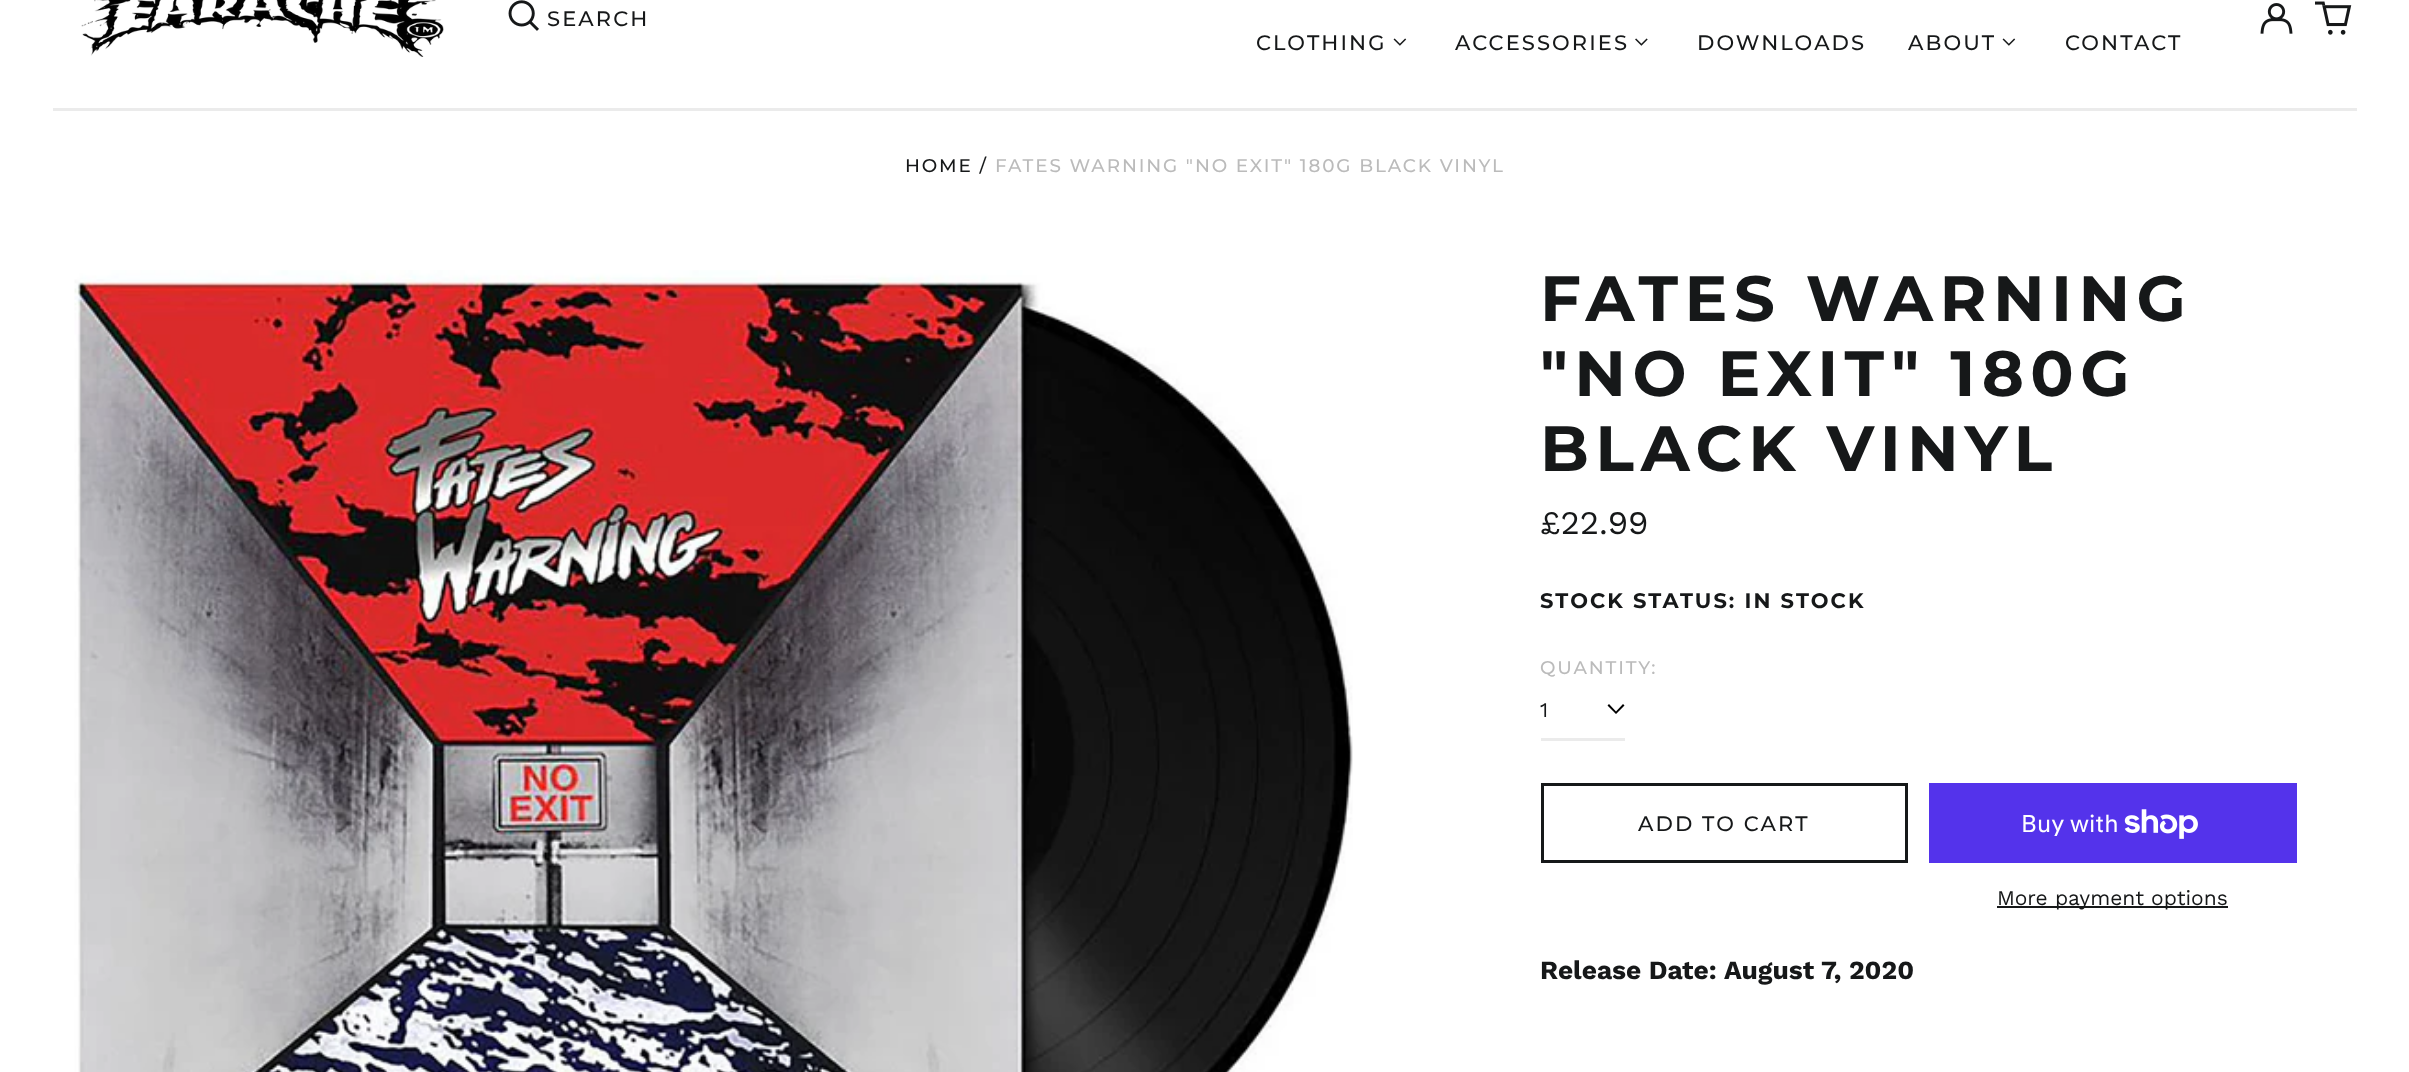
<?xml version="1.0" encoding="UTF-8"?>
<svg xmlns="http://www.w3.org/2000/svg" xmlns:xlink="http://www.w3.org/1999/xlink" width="2409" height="1072">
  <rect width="100%" height="100%" fill="#ffffff" />
  <rect x="53" y="108" width="2304" height="3" fill="#ebebeb" />
  <image x="81" y="0" width="363" height="57" xlink:href="image1.png" />
  <image x="508" y="0" width="31" height="31" xlink:href="image2.png" />
  <image x="2260" y="3" width="33" height="31" xlink:href="image3.png" />
  <image x="2315" y="1" width="37" height="34" xlink:href="image4.png" />
  <image x="1393" y="38" width="14" height="8" xlink:href="image5.png" />
  <image x="1635" y="38" width="13" height="8" xlink:href="image6.png" />
  <image x="2002" y="38" width="14" height="8" xlink:href="image5.png" />
  <image x="74" y="270" width="1279" height="802" xlink:href="image7.png" />
  <path d="M 1623 704 l 1.5 1.5 l -8.5 8.5 l -8.5 -8.5 l 1.5 -1.5 l 7 7.5 z" fill="#000000" fill-rule="evenodd" />
  <rect x="1541" y="738" width="84" height="3" fill="#ebebeb" />
  <rect x="1542.5" y="784.5" width="364" height="77" fill="none" stroke="#161819" stroke-width="3" />
  <rect x="1929" y="783" width="368" height="80" fill="#5433eb" />
  <image x="2124" y="809" width="74" height="30" xlink:href="image8.png" />
  <rect x="1997" y="906" width="231" height="2" fill="#161819" />
  <text x="547" y="26" style="font-family: Montserrat; font-size: 21px; font-weight: 500; letter-spacing: 2.1px; fill: #161819">SEARCH</text>
  <text x="1256" y="50" style="font-family: Montserrat; font-size: 21px; font-weight: 500; letter-spacing: 2.1px; fill: #161819">CLOTHING</text>
  <text x="1455" y="50" style="font-family: Montserrat; font-size: 21px; font-weight: 500; letter-spacing: 2.1px; fill: #161819">ACCESSORIES</text>
  <text x="1697" y="50" style="font-family: Montserrat; font-size: 21px; font-weight: 500; letter-spacing: 2.1px; fill: #161819">DOWNLOADS</text>
  <text x="1908" y="50" style="font-family: Montserrat; font-size: 21px; font-weight: 500; letter-spacing: 2.1px; fill: #161819">ABOUT</text>
  <text x="2065" y="50" style="font-family: Montserrat; font-size: 21px; font-weight: 500; letter-spacing: 2.1px; fill: #161819">CONTACT</text>
  <text x="905" y="172" style="font-family: Montserrat; font-size: 18.4px; font-weight: 500; letter-spacing: 1.85px; fill: #161819">HOME /</text>
  <text x="995" y="172" style="font-family: Montserrat; font-size: 18.4px; font-weight: 500; letter-spacing: 1.85px; fill: #bbbbbb">FATES WARNING "NO EXIT" 180G BLACK VINYL</text>
  <text x="1540" y="321" style="font-family: Montserrat; font-size: 64px; font-weight: bold; letter-spacing: 6.4px; fill: #161819">FATES WARNING</text>
  <text x="1540" y="396" style="font-family: Montserrat; font-size: 64px; font-weight: bold; letter-spacing: 6.4px; fill: #161819">"NO EXIT" 180G</text>
  <text x="1540" y="471" style="font-family: Montserrat; font-size: 64px; font-weight: bold; letter-spacing: 6.4px; fill: #161819">BLACK VINYL</text>
  <text x="1540" y="534" style="font-family: Work Sans; font-size: 33px; fill: #161819">£22.99</text>
  <text x="1540" y="608" style="font-family: Montserrat; font-size: 21px; font-weight: bold; letter-spacing: 2.1px; fill: #161819">STOCK STATUS: IN STOCK</text>
  <text x="1540" y="674" style="font-family: Montserrat; font-size: 18.4px; font-weight: 500; letter-spacing: 1.85px; fill: #bbbbbb">QUANTITY:</text>
  <text x="1540" y="717" style="font-family: Work Sans; font-size: 21px; fill: #161819">1</text>
  <text x="1638" y="831" style="font-family: Montserrat; font-size: 21px; font-weight: 500; letter-spacing: 2.1px; fill: #161819">ADD TO CART</text>
  <text x="2021" y="832" style="font-family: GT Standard; font-size: 24px; fill: #ffffff">Buy with</text>
  <text x="1997" y="905" style="font-family: Work Sans; font-size: 21px; fill: #161819">More payment options</text>
  <text x="1540" y="979" style="font-family: Work Sans; font-size: 26.25px; font-weight: bold; fill: #161819">Release Date: August 7, 2020</text>
</svg>
